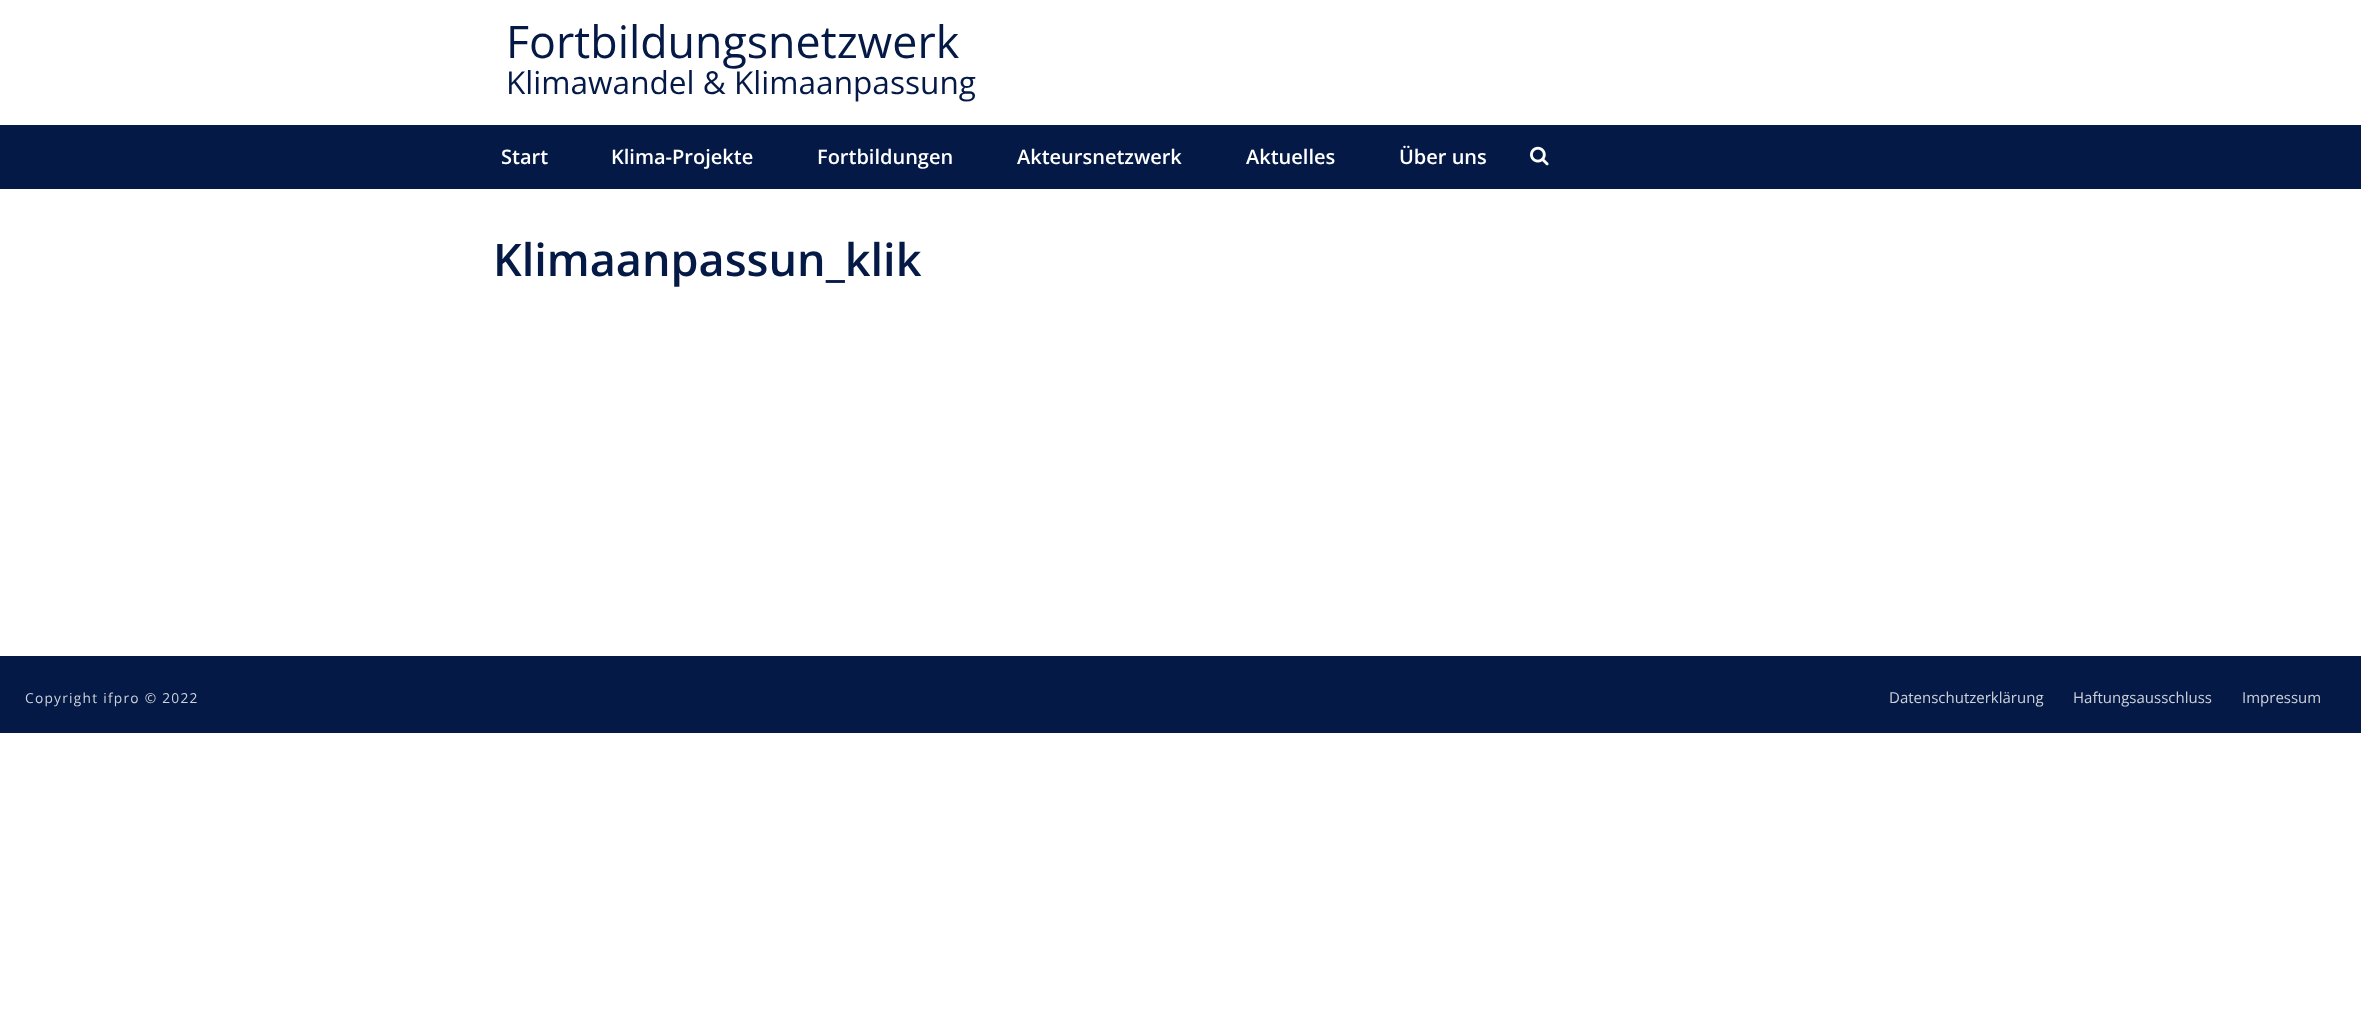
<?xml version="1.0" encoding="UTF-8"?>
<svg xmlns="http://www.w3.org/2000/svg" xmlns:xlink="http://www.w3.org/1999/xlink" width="2361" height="1012">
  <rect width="100%" height="100%" fill="#ffffff" />
  <rect y="125" width="2361" height="64" fill="#041945" />
  <image x="1530" y="146" width="19" height="20" xlink:href="image1.png" />
  <rect y="656" width="2361" height="77" fill="#041945" />
  <text x="506" y="58" style="font-family: Open Sans; font-size: 44.75px; fill: #041945">Fortbildungsnetzwerk</text>
  <text x="506" y="94" style="font-family: Open Sans; font-size: 31.6px; fill: #041945">Klimawandel &amp; Klimaanpassung</text>
  <text x="501" y="164" style="font-family: Open Sans; font-size: 20px; font-weight: 600; fill: #ffffff">Start</text>
  <text x="611" y="164" style="font-family: Open Sans; font-size: 20px; font-weight: 600; fill: #ffffff">Klima-Projekte</text>
  <text x="817" y="164" style="font-family: Open Sans; font-size: 20px; font-weight: 600; fill: #ffffff">Fortbildungen</text>
  <text x="1017" y="164" style="font-family: Open Sans; font-size: 20px; font-weight: 600; fill: #ffffff">Akteursnetzwerk</text>
  <text x="1246" y="164" style="font-family: Open Sans; font-size: 20px; font-weight: 600; fill: #ffffff">Aktuelles</text>
  <text x="1399" y="164" style="font-family: Open Sans; font-size: 20px; font-weight: 600; fill: #ffffff">Über uns</text>
  <text x="493" y="276" style="font-family: Open Sans; font-size: 45px; font-weight: 600; fill: #041945">Klimaanpassun_klik</text>
  <text x="25" y="703" style="font-family: Open Sans; font-size: 13.75px; letter-spacing: 1.25px; fill: #cdd1da">Copyright ifpro © 2022</text>
  <text x="1889" y="703" style="font-family: Open Sans; font-size: 15px; fill: #cdd1da">Datenschutzerklärung</text>
  <text x="2073" y="703" style="font-family: Open Sans; font-size: 15px; fill: #cdd1da">Haftungsausschluss</text>
  <text x="2242" y="703" style="font-family: Open Sans; font-size: 15px; fill: #cdd1da">Impressum</text>
</svg>
